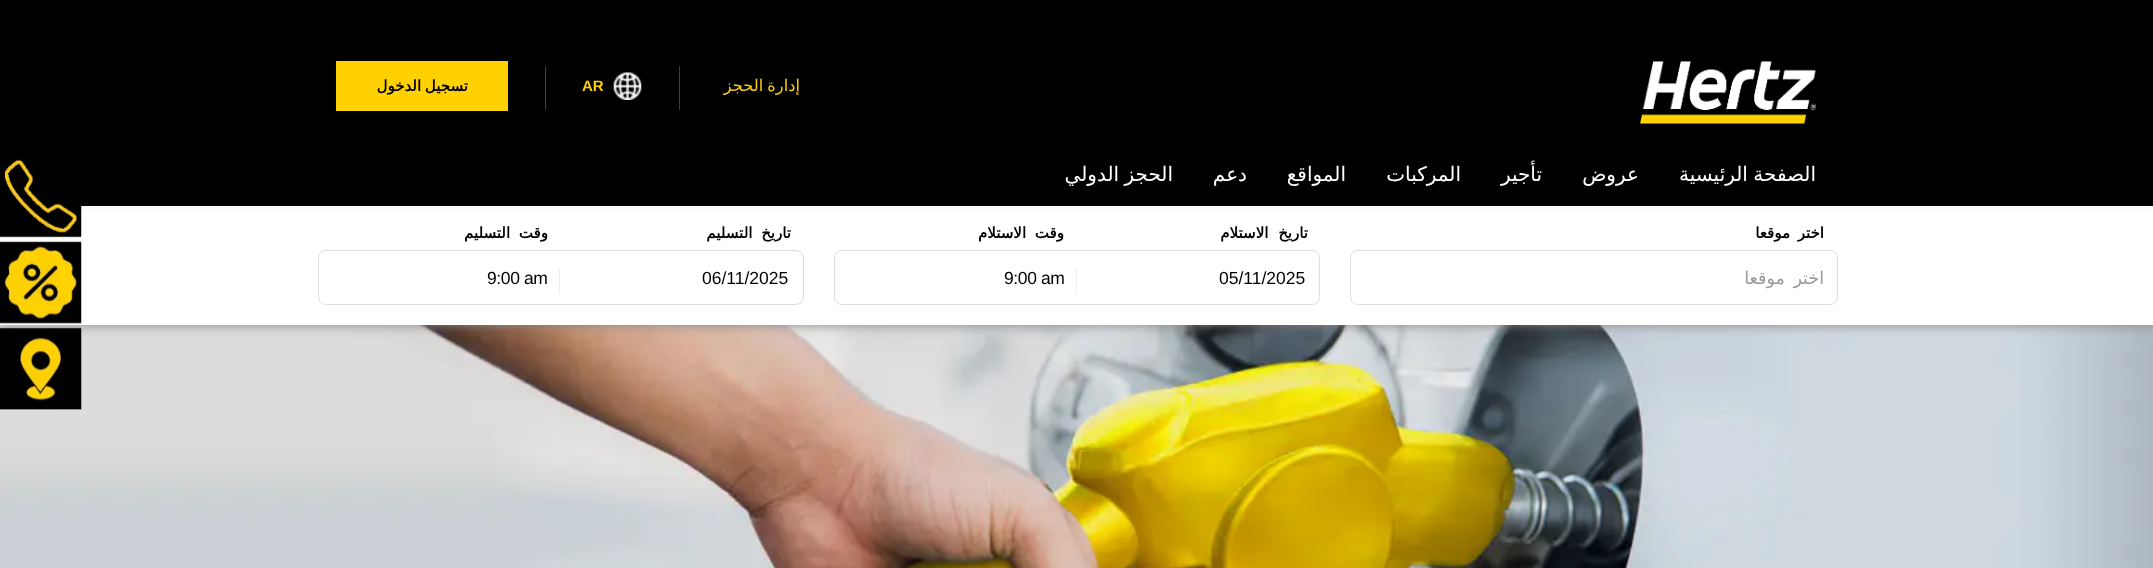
<?xml version="1.0" encoding="UTF-8"?>
<svg xmlns="http://www.w3.org/2000/svg" xmlns:xlink="http://www.w3.org/1999/xlink" width="2153" height="568">
  <rect width="100%" height="100%" fill="#ffffff" />
  <image x="0" y="325" width="2153" height="243" xlink:href="image6.png" />
  <rect y="206" width="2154" height="119" fill="#888888" filter="blur(6px)" />
  <rect y="206" width="2153" height="119" fill="#ffffff" />
  <rect width="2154" height="206" fill="#eeeeee" filter="blur(3px)" />
  <rect width="2153" height="206" fill="#000000" />
  <image x="1640" y="61" width="176" height="63" xlink:href="image1.png" />
  <rect x="679" y="66" width="1" height="44" fill="#3f3f3f" />
  <image x="613" y="72" width="29" height="28" xlink:href="image2.png" />
  <rect x="545" y="66" width="1" height="44" fill="#3f3f3f" />
  <rect x="336" y="61" width="172" height="50" fill="#ffd100" />
  <rect x="1350.5" y="250.5" width="487" height="54" rx="7.5" fill="none" stroke="#dddddd" />
  <rect x="834.5" y="250.5" width="485" height="54" rx="7.5" fill="none" stroke="#dddddd" />
  <rect x="1076" y="269" width="1" height="25" fill="#eeeeee" />
  <rect x="318.5" y="250.5" width="485" height="54" rx="7.5" fill="none" stroke="#dddddd" />
  <rect x="559" y="269" width="1" height="25" fill="#eeeeee" />
  <image x="0" y="155" width="82" height="83" xlink:href="image3.png" />
  <image x="0" y="241" width="82" height="83" xlink:href="image4.png" />
  <image x="0" y="327" width="82" height="83" xlink:href="image5.png" />
  <text x="800" y="91" word-spacing="-1" style="font-family: DejaVu Sans; font-size: 16.25px; direction: rtl; fill: #ffd100">إدارة الحجز</text>
  <text x="582" y="91" style="font-family: Liberation Sans; font-size: 15px; font-weight: bold; fill: #ffd100">AR</text>
  <text x="468" y="91" word-spacing="-1" style="font-family: DejaVu Sans; font-size: 15px; font-weight: bold; direction: rtl; fill: #000000">تسجيل الدخول</text>
  <text x="1816" y="181" word-spacing="-1" style="font-family: DejaVu Sans; font-size: 20px; direction: rtl; fill: #ffffff">الصفحة الرئيسية</text>
  <text x="1639" y="181" style="font-family: DejaVu Sans; font-size: 20px; direction: rtl; fill: #ffffff">عروض</text>
  <text x="1542" y="181" style="font-family: DejaVu Sans; font-size: 20px; direction: rtl; fill: #ffffff">تأجير</text>
  <text x="1461" y="181" style="font-family: DejaVu Sans; font-size: 20px; direction: rtl; fill: #ffffff">المركبات</text>
  <text x="1346" y="181" style="font-family: DejaVu Sans; font-size: 20px; direction: rtl; fill: #ffffff">المواقع</text>
  <text x="1247" y="181" style="font-family: DejaVu Sans; font-size: 20px; direction: rtl; fill: #ffffff">دعم</text>
  <text x="1173" y="181" word-spacing="-1" style="font-family: DejaVu Sans; font-size: 20px; direction: rtl; fill: #ffffff">الحجز الدولي</text>
  <text x="1824" y="238" word-spacing="3" style="font-family: DejaVu Sans; font-size: 15px; font-weight: bold; letter-spacing: -0.4px; direction: rtl; fill: #000000">اختر موقعا</text>
  <text x="1824" y="284" word-spacing="3" style="font-family: DejaVu Sans; font-size: 17.5px; letter-spacing: -0.4px; direction: rtl; fill: #999999">اختر موقعا</text>
  <text x="1308" y="238" word-spacing="5" style="font-family: DejaVu Sans; font-size: 15px; font-weight: bold; letter-spacing: -0.4px; direction: rtl; fill: #000000">تاريخ الاستلام</text>
  <text x="1219" y="284" style="font-family: Liberation Sans; font-size: 17.5px; fill: #000000">05/11/2025</text>
  <text x="1064" y="238" word-spacing="4" style="font-family: DejaVu Sans; font-size: 15px; font-weight: bold; letter-spacing: -0.4px; direction: rtl; fill: #000000">وقت الاستلام</text>
  <text x="1004" y="284" style="font-family: Liberation Sans; font-size: 17.5px; letter-spacing: -0.4px; fill: #000000">9:00 am</text>
  <text x="791" y="238" word-spacing="4" style="font-family: DejaVu Sans; font-size: 15px; font-weight: bold; letter-spacing: -0.4px; direction: rtl; fill: #000000">تاريخ التسليم</text>
  <text x="702" y="284" style="font-family: Liberation Sans; font-size: 17.5px; fill: #000000">06/11/2025</text>
  <text x="548" y="238" word-spacing="4" style="font-family: DejaVu Sans; font-size: 15px; font-weight: bold; letter-spacing: -0.4px; direction: rtl; fill: #000000">وقت التسليم</text>
  <text x="487" y="284" style="font-family: Liberation Sans; font-size: 17.5px; letter-spacing: -0.4px; fill: #000000">9:00 am</text>
</svg>
